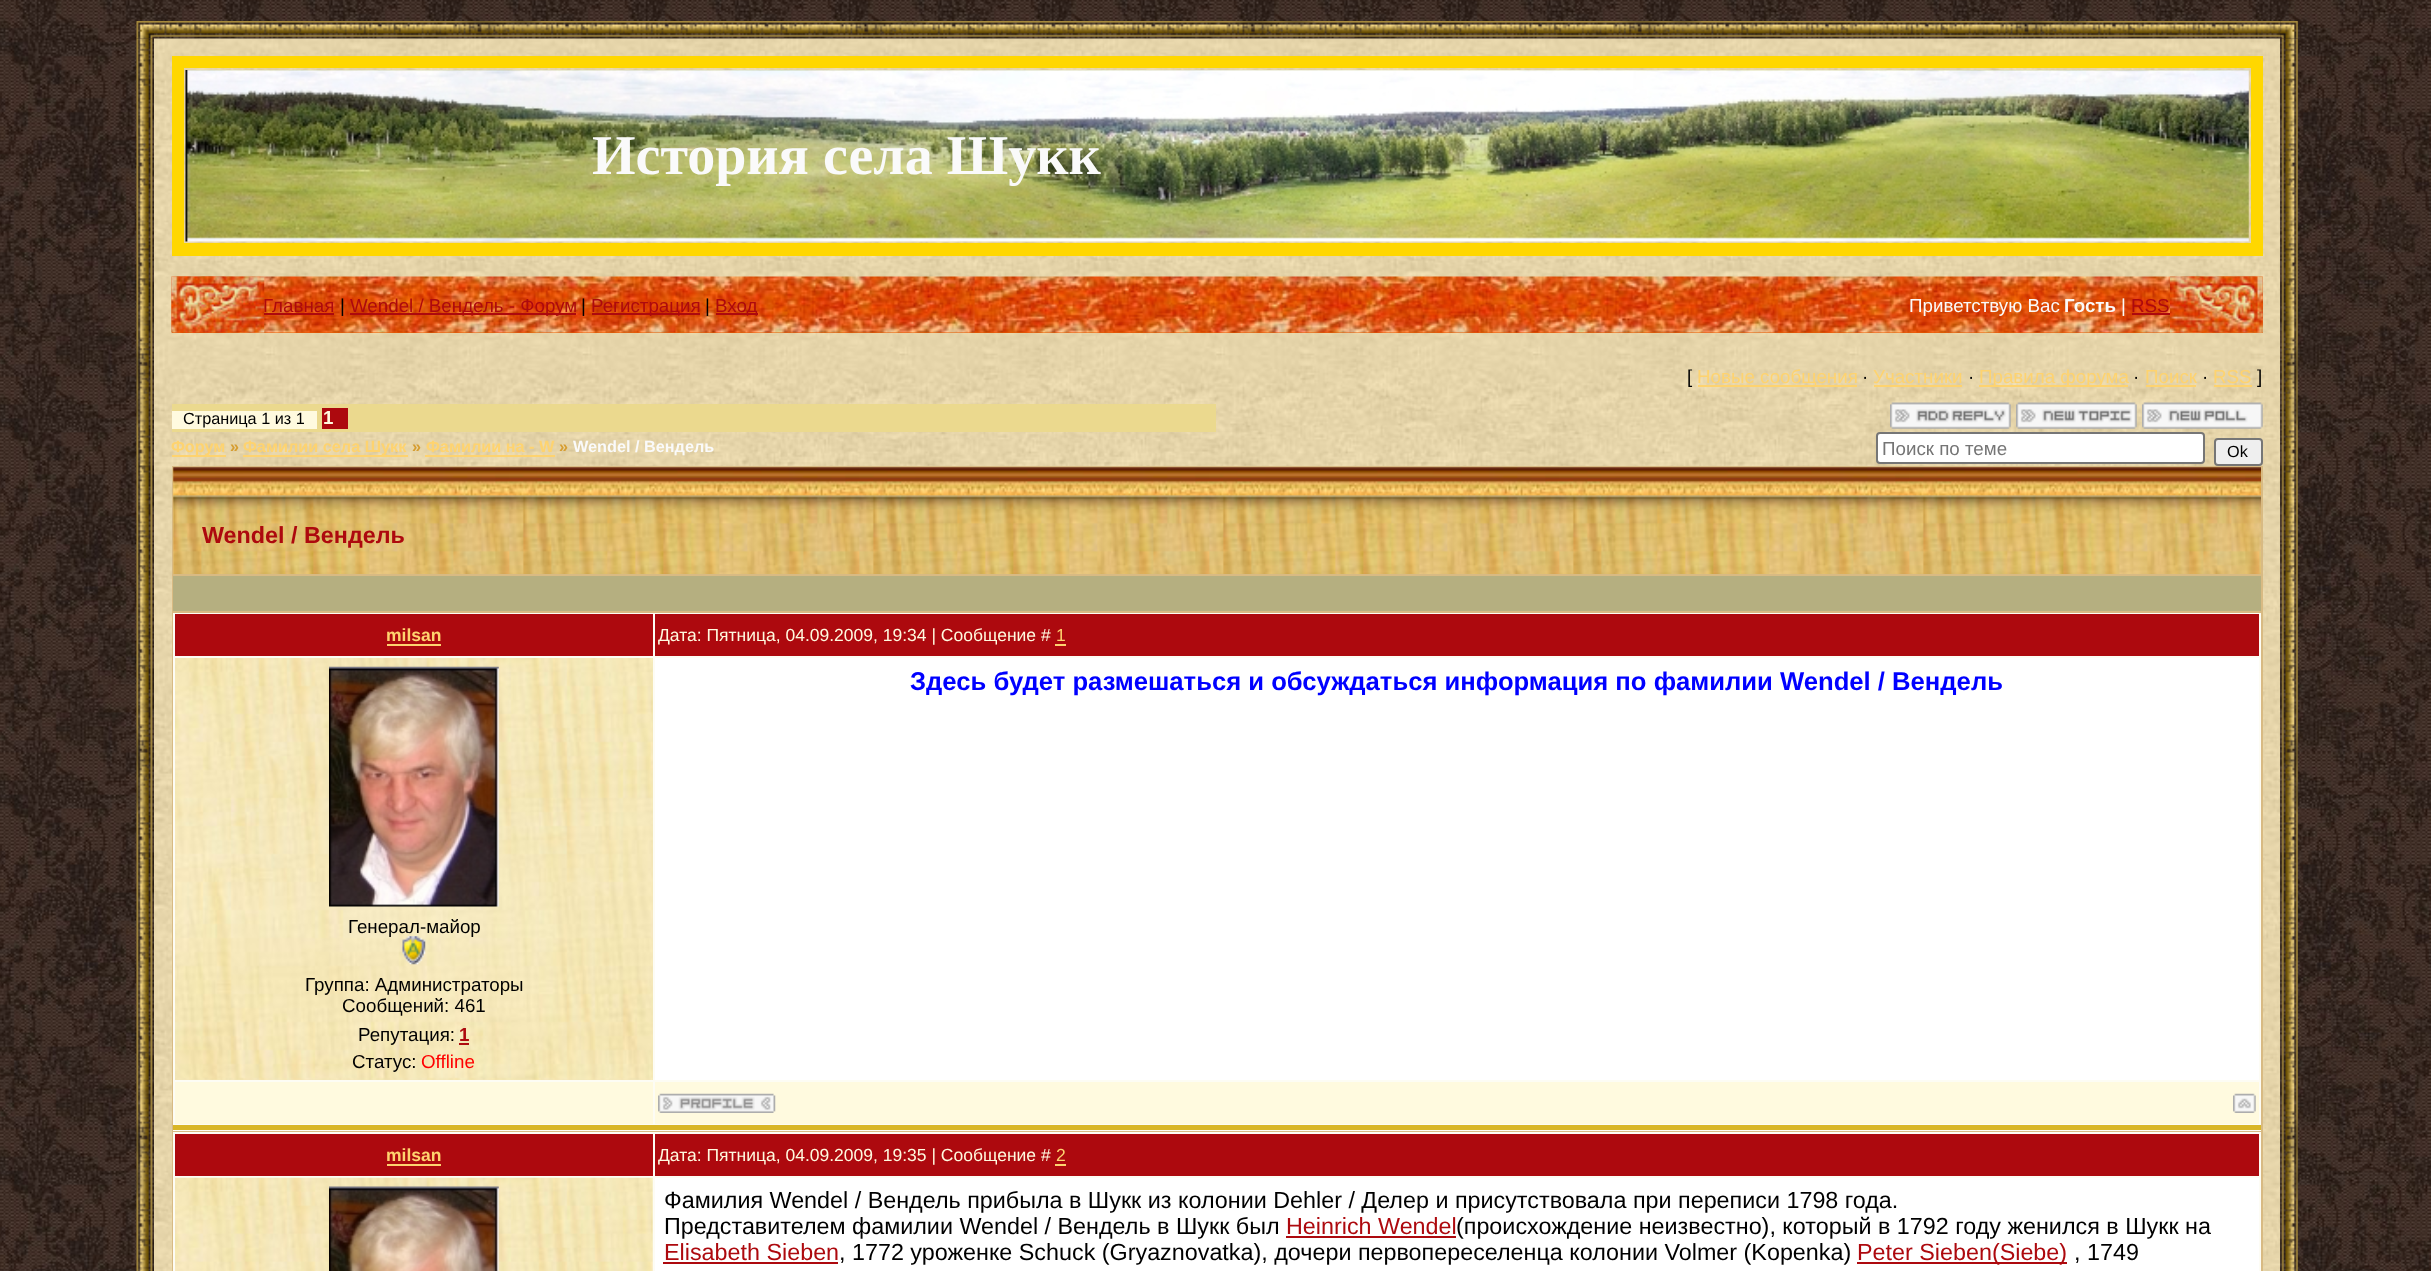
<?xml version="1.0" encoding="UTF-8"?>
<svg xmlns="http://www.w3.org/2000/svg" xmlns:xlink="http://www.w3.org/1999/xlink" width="2431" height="1271">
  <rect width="100%" height="100%" fill="#ffffff" />
  <image x="0" y="0" width="2431" height="1271" xlink:href="image1.png" />
  <image x="136" y="38" width="18" height="1233" xlink:href="image5.png" />
  <image x="136" y="21" width="18" height="18" xlink:href="image2.png" />
  <image x="154" y="21" width="2127" height="18" xlink:href="image3.png" />
  <image x="154" y="38" width="2127" height="1233" xlink:href="image6.png" />
  <image x="2280" y="38" width="18" height="1233" xlink:href="image22.png" />
  <image x="2280" y="21" width="18" height="18" xlink:href="image4.png" />
  <rect x="184" y="56" width="2067" height="12" fill="#ffd700" />
  <rect x="2251" y="56" width="12" height="187" fill="#ffd700" />
  <rect x="184" y="243" width="2079" height="13" fill="#ffd700" />
  <rect x="172" y="56" width="12" height="200" fill="#ffd700" />
  <image x="185" y="70" width="2064" height="172" xlink:href="image7.png" />
  <rect x="172" y="277" width="2091" height="56" fill="#e65d03" />
  <image x="171" y="276" width="2092" height="57" xlink:href="image8.png" />
  <image x="171" y="276" width="94" height="57" xlink:href="image9.png" />
  <rect x="264" y="313" width="70" height="2" fill="#ad090e" />
  <rect x="350" y="313" width="226" height="2" fill="#ad090e" />
  <rect x="592" y="313" width="108" height="2" fill="#ad090e" />
  <rect x="716" y="313" width="42" height="2" fill="#ad090e" />
  <rect x="2132" y="313" width="38" height="2" fill="#ad090e" />
  <image x="2170" y="276" width="93" height="57" xlink:href="image10.png" />
  <rect x="1698" y="385" width="159" height="2" fill="#fed36f" />
  <rect x="1874" y="385" width="88" height="2" fill="#fed36f" />
  <rect x="1979" y="385" width="149" height="2" fill="#fed36f" />
  <rect x="2146" y="385" width="50" height="2" fill="#fed36f" />
  <rect x="2214" y="385" width="38" height="2" fill="#fed36f" />
  <rect x="172" y="404" width="1044" height="28" fill="#ebd98e" />
  <rect x="172" y="411" width="145" height="18" fill="#fffadf" />
  <rect x="322" y="408" width="26" height="21" fill="#ad090e" />
  <image x="1890" y="402" width="121" height="27" xlink:href="image11.png" />
  <image x="2016" y="402" width="121" height="27" xlink:href="image12.png" />
  <image x="2142" y="402" width="121" height="27" xlink:href="image13.png" />
  <rect x="172" y="455" width="54" height="2" fill="#fed36f" />
  <rect x="243" y="455" width="165" height="2" fill="#fed36f" />
  <rect x="425" y="455" width="130" height="2" fill="#fed36f" />
  <rect x="1877" y="433" width="327" height="30" rx="3" fill="#ffffff" stroke="#767676" stroke-width="2" />
  <rect x="2215" y="439" width="47" height="26" rx="3" fill="#efefef" stroke="#767676" stroke-width="2" />
  <rect x="172" y="466" width="2091" height="805" fill="#d8ba83" />
  <rect x="173" y="467" width="2088" height="107" fill="#e2c275" />
  <image x="173" y="467" width="2088" height="107" xlink:href="image14.png" />
  <rect x="173" y="576" width="2088" height="35" fill="#b5af80" />
  <rect x="173" y="613" width="2088" height="518" fill="#fdfcf4" />
  <rect x="173" y="1125" width="2088" height="5" fill="#d9b627" />
  <rect x="175" y="614" width="478" height="42" fill="#ad090e" />
  <rect x="387" y="644" width="54" height="2" fill="#fed36f" />
  <rect x="655" y="614" width="1604" height="42" fill="#ad090e" />
  <rect x="1055" y="644" width="11" height="2" fill="#fed36f" />
  <rect x="655" y="658" width="1604" height="422" fill="#ffffff" />
  <rect x="175" y="658" width="478" height="422" fill="#f2e7ba" />
  <image x="175" y="658" width="478" height="422" xlink:href="image15.png" />
  <image x="329" y="666" width="170" height="241" xlink:href="image16.png" />
  <rect x="459" y="1043" width="10" height="2" fill="#ad090e" />
  <rect x="175" y="1082" width="478" height="42" fill="#fffadf" />
  <rect x="655" y="1082" width="1604" height="42" fill="#fffadf" />
  <image x="658" y="1093" width="118" height="20" xlink:href="image18.png" />
  <image x="2233" y="1093" width="23" height="20" xlink:href="image19.png" />
  <rect x="173" y="1132" width="2088" height="139" fill="#fdfcf4" />
  <rect x="175" y="1134" width="478" height="42" fill="#ad090e" />
  <rect x="387" y="1164" width="54" height="2" fill="#fed36f" />
  <rect x="655" y="1134" width="1604" height="42" fill="#ad090e" />
  <rect x="1055" y="1164" width="11" height="2" fill="#fed36f" />
  <image x="175" y="1177" width="478" height="94" xlink:href="image20.png" />
  <image x="329" y="1186" width="170" height="85" xlink:href="image21.png" />
  <rect x="655" y="1178" width="1604" height="93" fill="#ffffff" />
  <rect x="1286" y="1236" width="170" height="2" fill="#ad090e" />
  <rect x="663" y="1262" width="175" height="2" fill="#ad090e" />
  <rect x="1857" y="1262" width="210" height="2" fill="#ad090e" />
  <text x="592" y="174" style="font-family: Liberation Serif; font-size: 56px; font-weight: bold; fill: #fafafa">История села Шукк</text>
  <text x="263" y="312" style="font-family: Liberation Sans; font-size: 18.75px; fill: #ad090e">Главная</text>
  <text x="340" y="312" style="font-family: Liberation Sans; font-size: 18.75px; fill: #000000">|</text>
  <text x="350" y="312" style="font-family: Liberation Sans; font-size: 18.75px; fill: #ad090e">Wendel / Вендель - Форум</text>
  <text x="581" y="312" style="font-family: Liberation Sans; font-size: 18.75px; fill: #000000">|</text>
  <text x="591" y="312" style="font-family: Liberation Sans; font-size: 18.75px; fill: #ad090e">Регистрация</text>
  <text x="705" y="312" style="font-family: Liberation Sans; font-size: 18.75px; fill: #000000">|</text>
  <text x="715" y="312" style="font-family: Liberation Sans; font-size: 18.75px; fill: #ad090e">Вход</text>
  <text x="1909" y="312" style="font-family: Liberation Sans; font-size: 18.75px; fill: #fafafa">Приветствую Вас</text>
  <text x="2064" y="312" style="font-family: Liberation Sans; font-size: 18.75px; font-weight: bold; fill: #fafafa">Гость</text>
  <text x="2121" y="312" style="font-family: Liberation Sans; font-size: 18.75px; fill: #fafafa">|</text>
  <text x="2131" y="312" style="font-family: Liberation Sans; font-size: 18.75px; fill: #ad090e">RSS</text>
  <text x="1687" y="383" style="font-family: Liberation Sans; font-size: 18.75px; fill: #000000">[</text>
  <text x="1697" y="383" style="font-family: Liberation Sans; font-size: 18.75px; fill: #fed36f">Новые сообщения</text>
  <text x="1862" y="383" style="font-family: Liberation Sans; font-size: 18.75px; fill: #000000">·</text>
  <text x="1873" y="383" style="font-family: Liberation Sans; font-size: 18.75px; fill: #fed36f">Участники</text>
  <text x="1968" y="383" style="font-family: Liberation Sans; font-size: 18.75px; fill: #000000">·</text>
  <text x="1979" y="383" style="font-family: Liberation Sans; font-size: 18.75px; fill: #fed36f">Правила форума</text>
  <text x="2133" y="383" style="font-family: Liberation Sans; font-size: 18.75px; fill: #000000">·</text>
  <text x="2145" y="383" style="font-family: Liberation Sans; font-size: 18.75px; fill: #fed36f">Поиск</text>
  <text x="2202" y="383" style="font-family: Liberation Sans; font-size: 18.75px; fill: #000000">·</text>
  <text x="2213" y="383" style="font-family: Liberation Sans; font-size: 18.75px; fill: #fed36f">RSS</text>
  <text x="2257" y="383" style="font-family: Liberation Sans; font-size: 18.75px; fill: #000000">]</text>
  <text x="183" y="424" style="font-family: Liberation Sans; font-size: 16.25px; fill: #000000">Страница 1 из 1</text>
  <text x="323" y="424" style="font-family: Liberation Sans; font-size: 18.75px; font-weight: bold; fill: #fffadf">1</text>
  <text x="171" y="452" style="font-family: Liberation Sans; font-size: 16.25px; font-weight: bold; fill: #fed36f">Форум</text>
  <text x="230" y="452" style="font-family: Liberation Sans; font-size: 16.25px; font-weight: bold; fill: #d69d30">»</text>
  <text x="243" y="452" style="font-family: Liberation Sans; font-size: 16.25px; font-weight: bold; fill: #fed36f">Фамилии села Шукк</text>
  <text x="412" y="452" style="font-family: Liberation Sans; font-size: 16.25px; font-weight: bold; fill: #d69d30">»</text>
  <text x="426" y="452" style="font-family: Liberation Sans; font-size: 16.25px; font-weight: bold; fill: #fed36f">Фамилии на - W</text>
  <text x="559" y="452" style="font-family: Liberation Sans; font-size: 16.25px; font-weight: bold; fill: #d69d30">»</text>
  <text x="573" y="452" style="font-family: Liberation Sans; font-size: 16.25px; font-weight: bold; fill: #fafafa">Wendel / Вендель</text>
  <text x="1882" y="455" style="font-family: Liberation Sans; font-size: 18.75px; fill: #757575">Поиск по теме</text>
  <text x="2227" y="457" style="font-family: Liberation Sans; font-size: 16.25px; fill: #000000">Ok</text>
  <text x="202" y="543" style="font-family: Liberation Sans; font-size: 23.33px; font-weight: bold; fill: #ad090e">Wendel / Вендель</text>
  <text x="386" y="641" style="font-family: Liberation Sans; font-size: 17.5px; font-weight: bold; fill: #fed36f">milsan</text>
  <text x="658" y="641" style="font-family: Liberation Sans; font-size: 17.5px; fill: #fffadf">Дата: Пятница, 04.09.2009, 19:34 | Сообщение #</text>
  <text x="1056" y="641" style="font-family: Liberation Sans; font-size: 17.5px; fill: #fed36f">1</text>
  <text x="910" y="690" style="font-family: Liberation Sans; font-size: 25.65px; font-weight: bold; fill: #0000ff">Здесь будет размешаться и обсуждаться информация по фамилии Wendel / Вендель</text>
  <text x="348" y="933" style="font-family: Liberation Sans; font-size: 18.75px; fill: #000000">Генерал-майор</text>
  <image x="402" y="936" width="24" height="29" xlink:href="image17.png" />
  <text x="305" y="991" style="font-family: Liberation Sans; font-size: 18.75px; fill: #000000">Группа: Администраторы</text>
  <text x="342" y="1012" style="font-family: Liberation Sans; font-size: 18.75px; fill: #000000">Сообщений: 461</text>
  <text x="358" y="1041" style="font-family: Liberation Sans; font-size: 18.75px; fill: #000000">Репутация:</text>
  <text x="459" y="1041" style="font-family: Liberation Sans; font-size: 18.75px; font-weight: bold; fill: #ad090e">1</text>
  <text x="352" y="1068" style="font-family: Liberation Sans; font-size: 18.75px; fill: #000000">Статус:</text>
  <text x="421" y="1068" style="font-family: Liberation Sans; font-size: 18.75px; fill: #ff0000">Offline</text>
  <text x="386" y="1161" style="font-family: Liberation Sans; font-size: 17.5px; font-weight: bold; fill: #fed36f">milsan</text>
  <text x="658" y="1161" style="font-family: Liberation Sans; font-size: 17.5px; fill: #fffadf">Дата: Пятница, 04.09.2009, 19:35 | Сообщение #</text>
  <text x="1056" y="1161" style="font-family: Liberation Sans; font-size: 17.5px; fill: #fed36f">2</text>
  <text x="664" y="1208" style="font-family: Liberation Sans; font-size: 23.33px; fill: #000000">Фамилия Wendel / Вендель прибыла в Шукк из колонии Dehler / Делер и присутствовала при переписи 1798 года.</text>
  <text x="664" y="1234" style="font-family: Liberation Sans; font-size: 23.33px; fill: #000000">Представителем фамилии Wendel / Вендель в Шукк был</text>
  <text x="1286" y="1234" style="font-family: Liberation Sans; font-size: 23.33px; fill: #ad090e">Heinrich Wendel</text>
  <text x="1456" y="1234" style="font-family: Liberation Sans; font-size: 23.33px; fill: #000000">(происхождение неизвестно), который в 1792 году женился в Шукк на</text>
  <text x="664" y="1260" style="font-family: Liberation Sans; font-size: 23.33px; fill: #ad090e">Elisabeth Sieben</text>
  <text x="839" y="1260" style="font-family: Liberation Sans; font-size: 23.33px; fill: #000000">, 1772 уроженке Schuck (Gryaznovatka), дочери первопереселенца колонии Volmer (Kopenka)</text>
  <text x="1857" y="1260" style="font-family: Liberation Sans; font-size: 23.33px; fill: #ad090e">Peter Sieben(Siebe)</text>
  <text x="2074" y="1260" style="font-family: Liberation Sans; font-size: 23.33px; fill: #000000">, 1749</text>
</svg>
